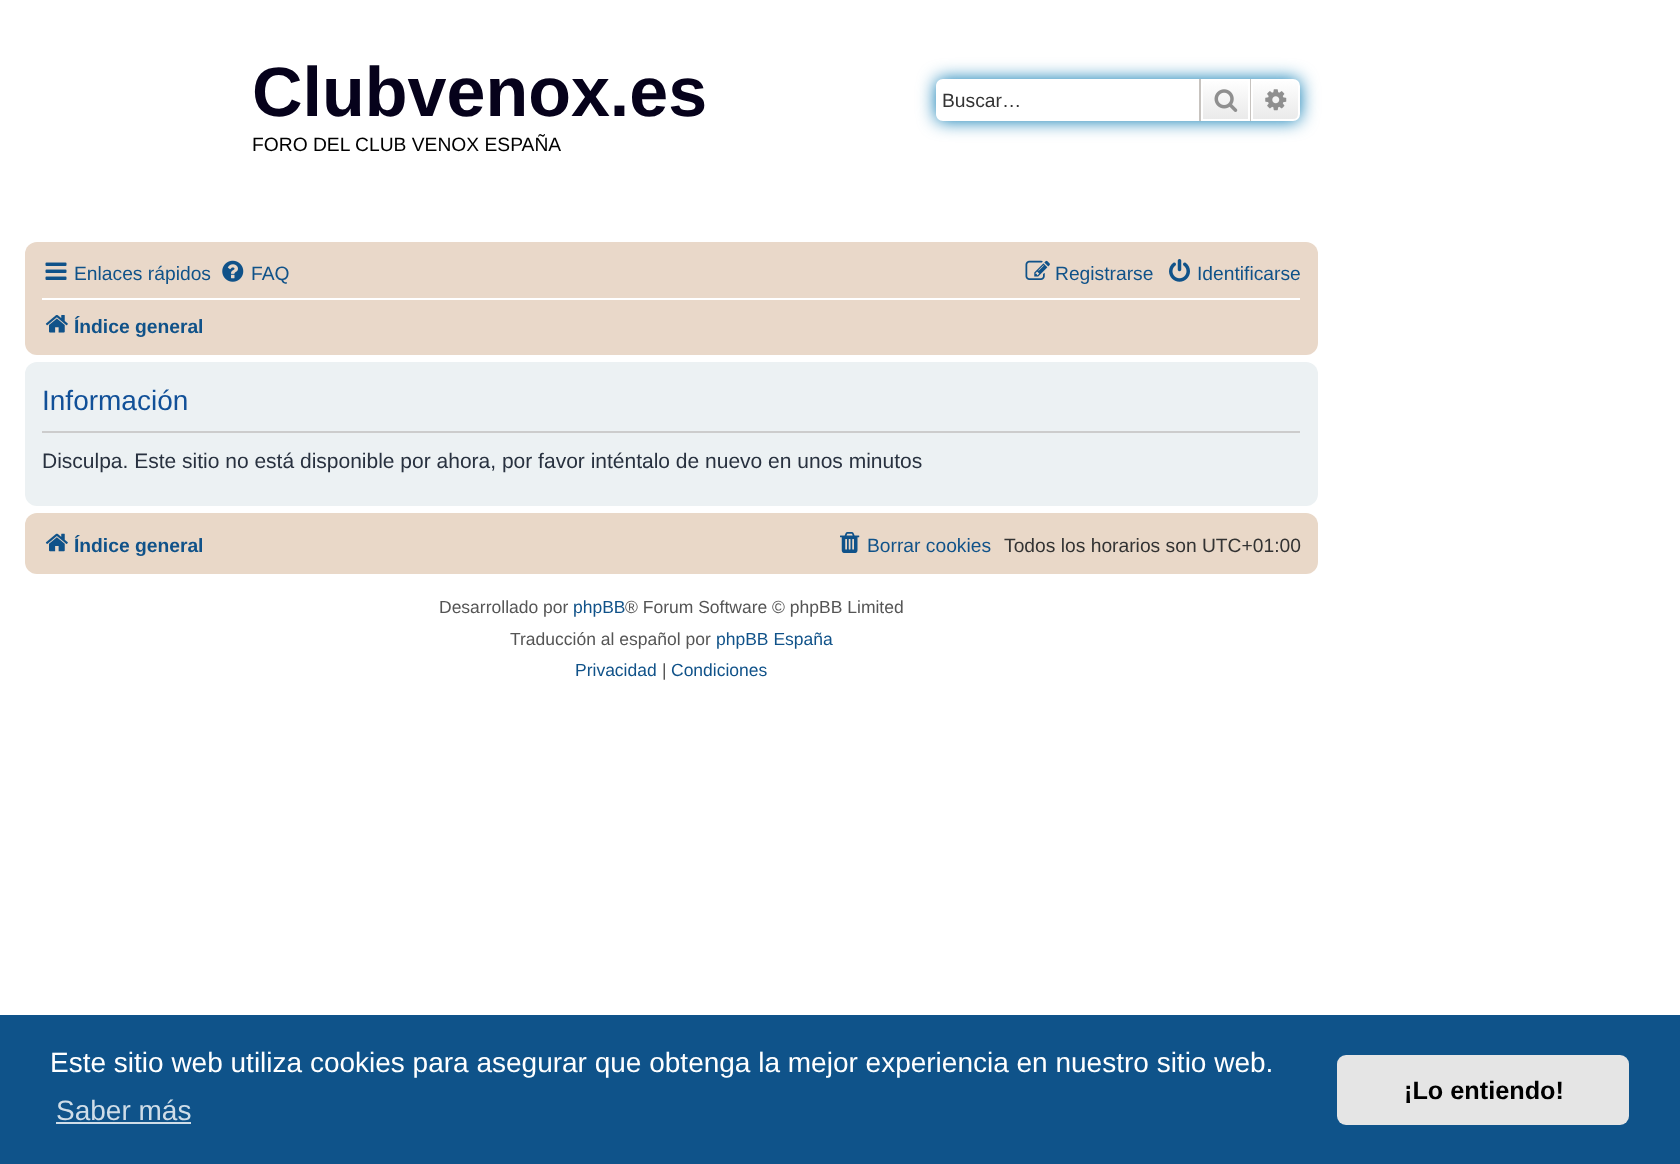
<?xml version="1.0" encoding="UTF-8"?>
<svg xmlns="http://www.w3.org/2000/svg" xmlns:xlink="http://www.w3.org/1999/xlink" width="1680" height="1164">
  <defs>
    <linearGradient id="g1" gradientUnits="userSpaceOnUse" x1="1225" y1="79" x2="1225" y2="121"><stop offset="0" stop-color="#ffffff" /><stop offset="1" stop-color="#e9e9e9" /></linearGradient>
    <linearGradient id="g2" gradientUnits="userSpaceOnUse" x1="1276" y1="79" x2="1276" y2="121"><stop offset="0" stop-color="#ffffff" /><stop offset="1" stop-color="#e9e9e9" /></linearGradient>
  </defs>
  <rect width="100%" height="100%" fill="#ffffff" />
  <rect x="936" y="79" width="364" height="42" rx="7" fill="#0075b0" filter="blur(9px)" />
  <path d="M 943 79 h 256 v 42 h -256 c -4 0 -7 -3 -7 -7 v -28 c 0 -4 3 -7 7 -7 z" fill="#ffffff" />
  <rect x="1203" y="81" width="45" height="38" fill="url(#g1)" />
  <rect x="1202" y="80" width="47" height="40" fill="none" stroke="#ffffff" stroke-width="2" />
  <rect x="1250" y="79" width="1" height="42" fill="#c7c3bf" />
  <rect x="1199" y="79" width="2" height="42" fill="#c7c3bf" />
  <image x="1214" y="89" width="24" height="23" xlink:href="image1.png" />
  <path d="M 1252 80 h 41 c 3.5 0 6 2.5 6 6 v 28 c 0 3.5 -2.5 6 -6 6 h -41 z" fill="url(#g2)" stroke="#ffffff" stroke-width="2" />
  <image x="1265" y="89" width="22" height="22" xlink:href="image2.png" />
  <rect x="25" y="242" width="1293" height="113" rx="12" fill="#e9d8c9" />
  <image x="45" y="262" width="22" height="18" xlink:href="image3.png" />
  <image x="222" y="260" width="22" height="22" xlink:href="image4.png" />
  <image x="1025" y="260" width="25" height="20" xlink:href="image5.png" />
  <image x="1169" y="259" width="21" height="23" xlink:href="image6.png" />
  <rect x="42" y="298" width="1258" height="2" fill="#ffffff" />
  <image x="45" y="315" width="23" height="18" xlink:href="image7.png" />
  <rect x="25" y="362" width="1293" height="144" rx="12" fill="#ecf1f3" />
  <rect x="42" y="431" width="1258" height="2" fill="#cccccc" />
  <rect x="25" y="513" width="1293" height="61" rx="12" fill="#e9d8c8" />
  <image x="45" y="533" width="23" height="19" xlink:href="image8.png" />
  <image x="840" y="532" width="20" height="21" xlink:href="image9.png" />
  <rect y="1015" width="1680" height="149" fill="#0f538a" />
  <rect x="56" y="1122" width="135" height="2" fill="#cfdde8" />
  <rect x="1337" y="1055" width="292" height="70" rx="9" fill="#e5e5e5" />
  <text x="252" y="116" style="font-family: Liberation Sans; font-size: 70px; font-weight: bold; fill: #06021b">Clubvenox.es</text>
  <text x="252" y="151" style="font-family: Liberation Sans; font-size: 19.25px; fill: #000000">FORO DEL CLUB VENOX ESPAÑA</text>
  <text x="942" y="107" style="font-family: Liberation Sans; font-size: 19.25px; fill: #333333">Buscar…</text>
  <text x="74" y="280" style="font-family: Liberation Sans; font-size: 19.25px; fill: #105289">Enlaces rápidos</text>
  <text x="251" y="280" style="font-family: Liberation Sans; font-size: 19.25px; fill: #105289">FAQ</text>
  <text x="1055" y="280" style="font-family: Liberation Sans; font-size: 19.25px; fill: #105289">Registrarse</text>
  <text x="1197" y="280" style="font-family: Liberation Sans; font-size: 19.25px; fill: #105289">Identificarse</text>
  <text x="74" y="333" style="font-family: Liberation Sans; font-size: 19.25px; font-weight: bold; fill: #105289">Índice general</text>
  <text x="42" y="410" style="font-family: Liberation Sans; font-size: 28px; fill: #115098">Información</text>
  <text x="42" y="468" style="font-family: Liberation Sans; font-size: 21px; fill: #28313f">Disculpa. Este sitio no está disponible por ahora, por favor inténtalo de nuevo en unos minutos</text>
  <text x="74" y="552" style="font-family: Liberation Sans; font-size: 19.25px; font-weight: bold; fill: #105289">Índice general</text>
  <text x="867" y="552" style="font-family: Liberation Sans; font-size: 19.25px; fill: #105289">Borrar cookies</text>
  <text x="1004" y="552" style="font-family: Liberation Sans; font-size: 19.25px; fill: #333333">Todos los horarios son UTC+01:00</text>
  <text x="439" y="613" style="font-family: Liberation Sans; font-size: 17.5px; fill: #555555">Desarrollado por</text>
  <text x="573" y="613" style="font-family: Liberation Sans; font-size: 17.5px; fill: #105289">phpBB</text>
  <text x="625" y="613" style="font-family: Liberation Sans; font-size: 17.5px; fill: #555555">® Forum Software © phpBB Limited</text>
  <text x="510" y="645" style="font-family: Liberation Sans; font-size: 17.5px; fill: #555555">Traducción al español por</text>
  <text x="716" y="645" style="font-family: Liberation Sans; font-size: 17.5px; fill: #105289">phpBB España</text>
  <text x="575" y="676" style="font-family: Liberation Sans; font-size: 17.5px; fill: #105289">Privacidad</text>
  <text x="662" y="676" style="font-family: Liberation Sans; font-size: 17.5px; fill: #555555">|</text>
  <text x="671" y="676" style="font-family: Liberation Sans; font-size: 17.5px; fill: #105289">Condiciones</text>
  <text x="50" y="1072" style="font-family: Liberation Sans; font-size: 28px; fill: #ffffff">Este sitio web utiliza cookies para asegurar que obtenga la mejor experiencia en nuestro sitio web.</text>
  <text x="56" y="1120" style="font-family: Liberation Sans; font-size: 28px; fill: #cfdde8">Saber más</text>
  <text x="1404" y="1099" style="font-family: Liberation Sans; font-size: 25.25px; font-weight: bold; fill: #000000">¡Lo entiendo!</text>
</svg>
